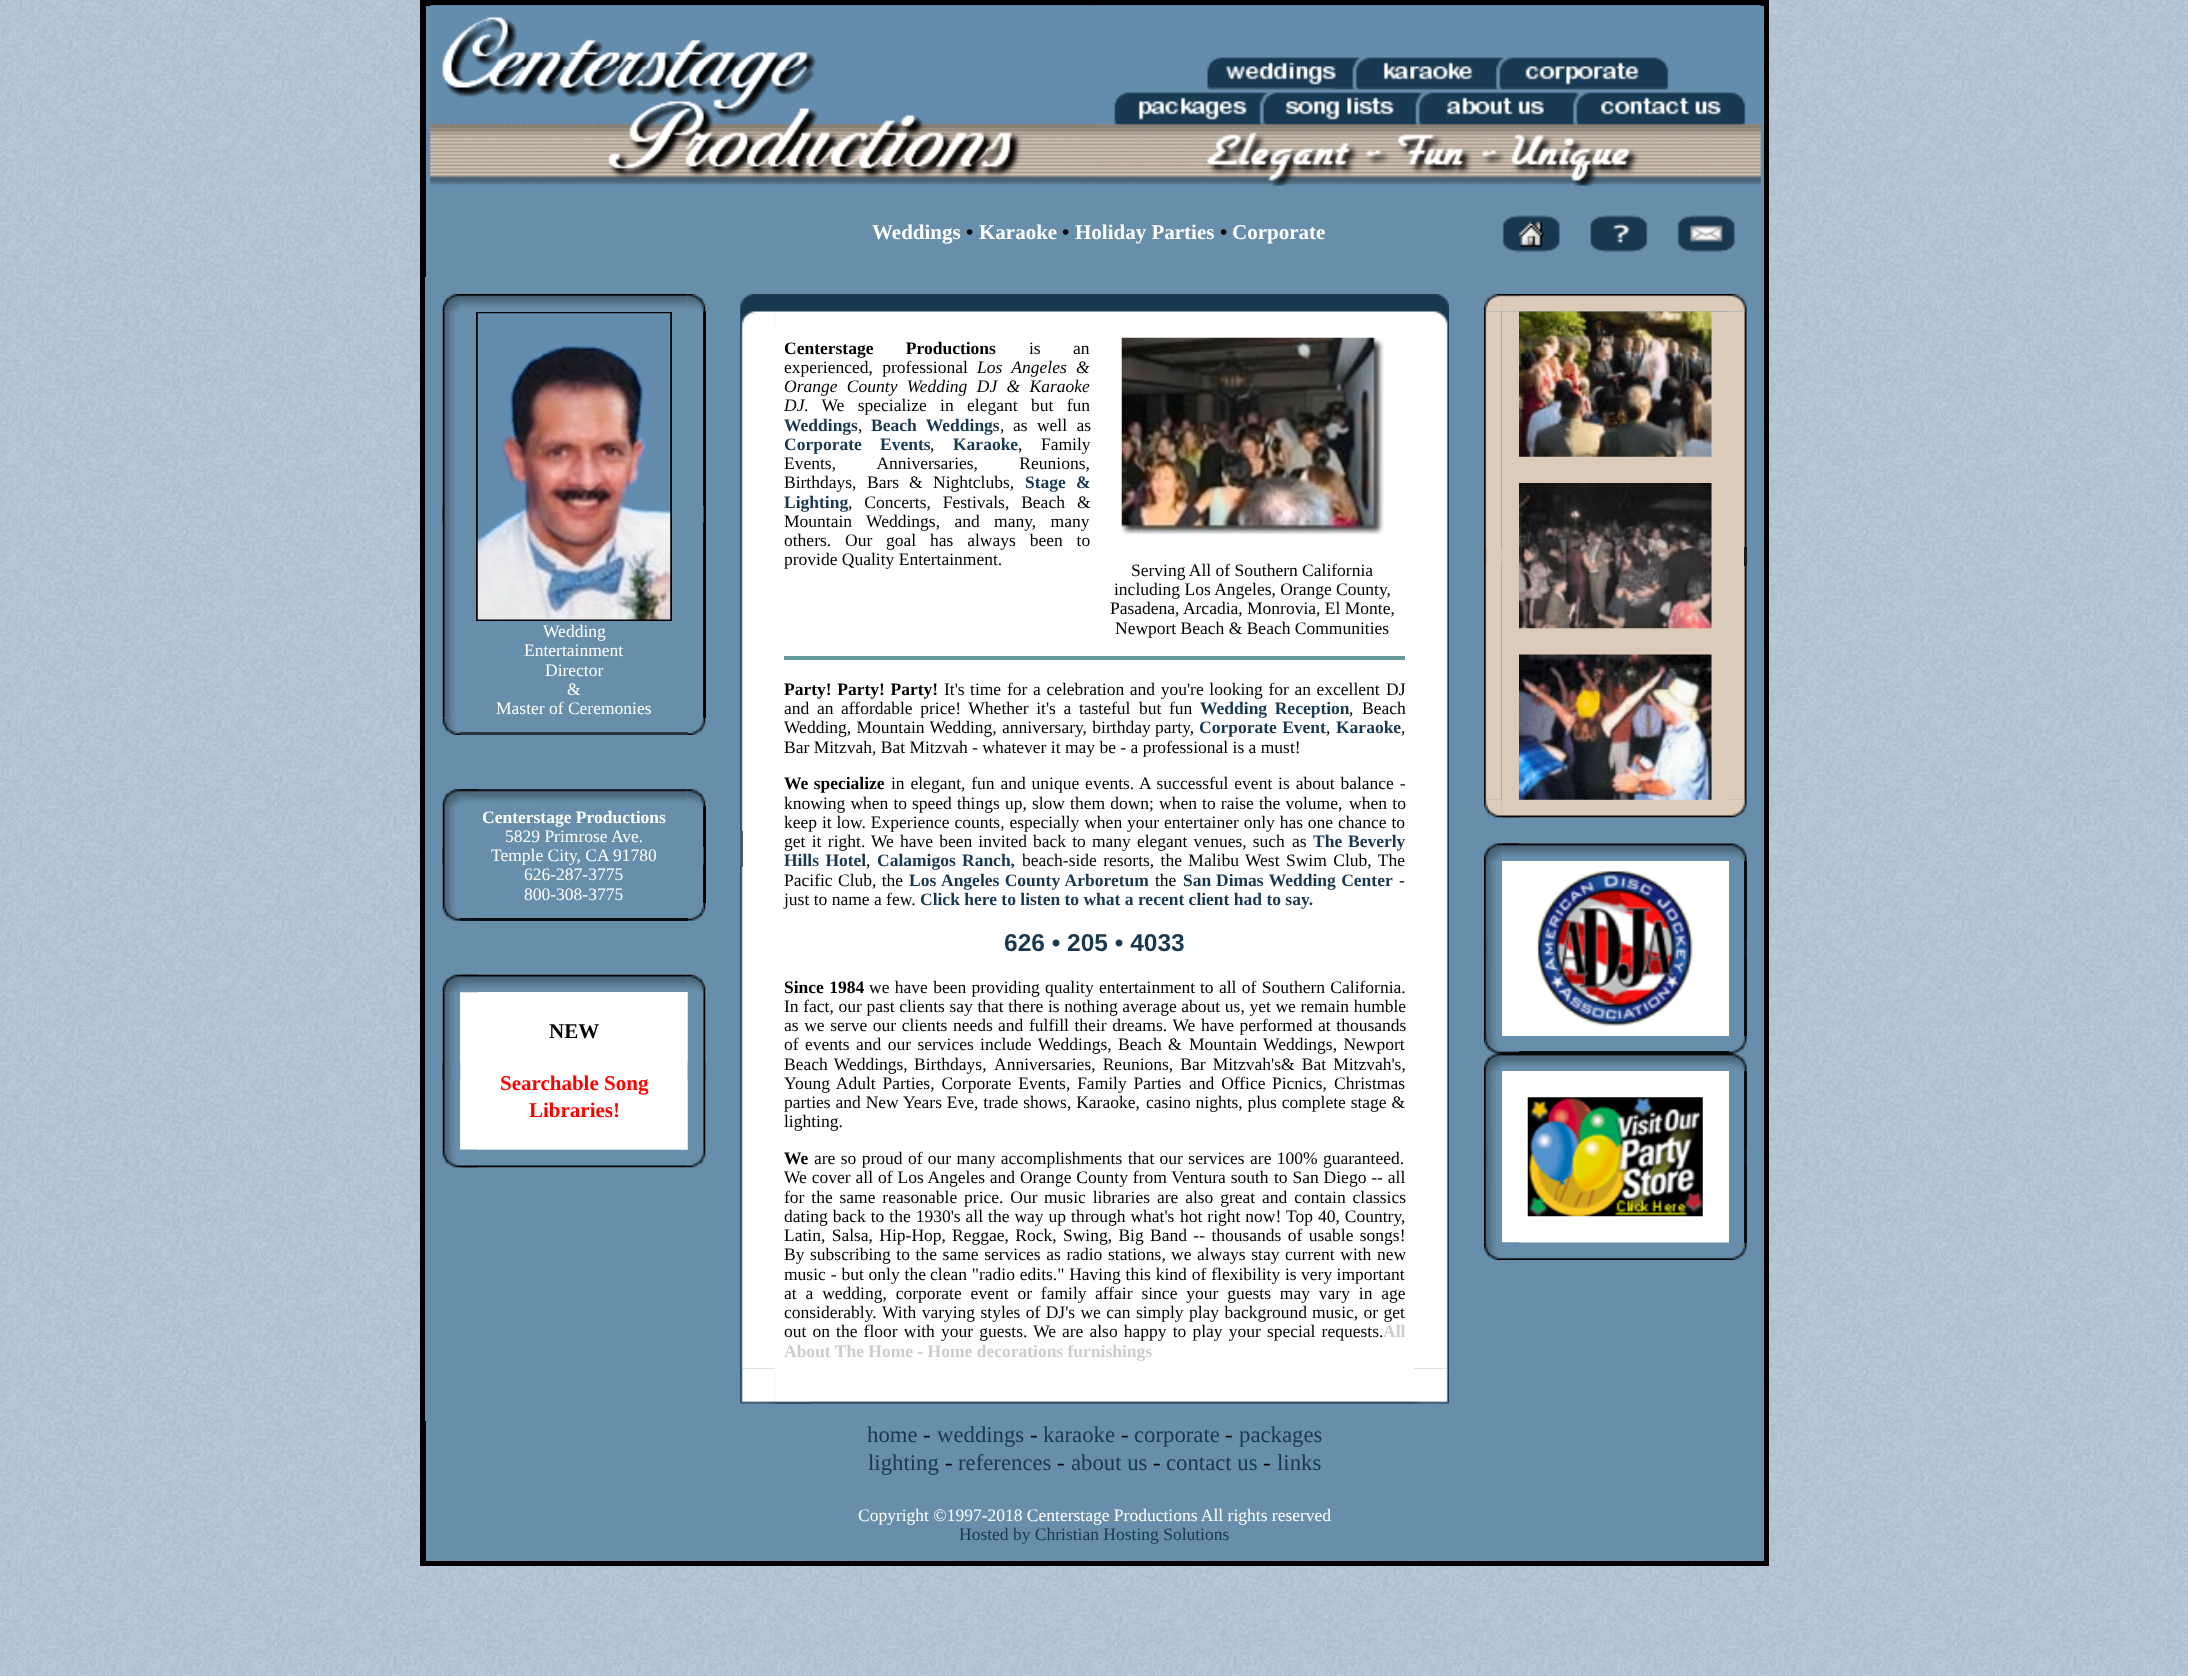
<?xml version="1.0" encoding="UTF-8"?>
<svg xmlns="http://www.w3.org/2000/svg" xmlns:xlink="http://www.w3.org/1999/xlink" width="2188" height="1676">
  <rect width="100%" height="100%" fill="#ffffff" />
  <image x="0" y="0" width="2188" height="1676" xlink:href="image1.png" />
  <rect x="422" y="2" width="1345" height="1562" fill="none" stroke="#000000" stroke-width="4" />
  <rect x="425" y="5" width="1340" height="1557" fill="#678eaa" stroke="#000000" stroke-width="2" />
  <image x="430" y="5" width="1331" height="182" xlink:href="image2.png" />
  <image x="430" y="5" width="666" height="182" xlink:href="image3.png" />
  <image x="1095" y="5" width="666" height="182" xlink:href="image4.png" />
  <image x="1502" y="215" width="58" height="38" xlink:href="image5.png" />
  <image x="1590" y="215" width="58" height="38" xlink:href="image6.png" />
  <image x="1677" y="215" width="58" height="38" xlink:href="image7.png" />
  <rect x="425" y="277" width="1" height="1144" fill="#678eaa" />
  <image x="460" y="294" width="228" height="14" xlink:href="image9.png" />
  <image x="442" y="311" width="13" height="407" xlink:href="image12.png" />
  <image x="442" y="294" width="19" height="18" xlink:href="image8.png" />
  <image x="460" y="294" width="18" height="7" xlink:href="image10.png" />
  <rect x="703" y="311" width="3" height="407" fill="#000000" />
  <image x="687" y="294" width="19" height="18" xlink:href="image11.png" />
  <image x="442" y="505" width="1" height="19" xlink:href="image13.png" />
  <rect x="477" y="313" width="194" height="307" fill="none" stroke="#000000" stroke-width="2" />
  <image x="477" y="313" width="194" height="307" xlink:href="image14.png" />
  <image x="703" y="505" width="1" height="19" xlink:href="image15.png" />
  <image x="442" y="717" width="19" height="18" xlink:href="image16.png" />
  <rect x="478" y="732" width="210" height="3" fill="#25333d" />
  <rect x="460" y="732" width="18" height="3" fill="#26353f" />
  <image x="687" y="717" width="19" height="18" xlink:href="image17.png" />
  <image x="460" y="789" width="228" height="14" xlink:href="image19.png" />
  <image x="442" y="806" width="13" height="97" xlink:href="image22.png" />
  <image x="442" y="789" width="19" height="18" xlink:href="image18.png" />
  <image x="460" y="789" width="18" height="8" xlink:href="image20.png" />
  <rect x="703" y="806" width="3" height="97" fill="#000000" />
  <image x="687" y="789" width="19" height="18" xlink:href="image21.png" />
  <image x="442" y="847" width="1" height="18" xlink:href="image23.png" />
  <image x="703" y="847" width="1" height="18" xlink:href="image24.png" />
  <image x="442" y="903" width="19" height="18" xlink:href="image25.png" />
  <rect x="478" y="918" width="210" height="3" fill="#070a0c" />
  <rect x="460" y="918" width="18" height="3" fill="#0c1115" />
  <image x="687" y="903" width="19" height="18" xlink:href="image26.png" />
  <image x="460" y="974" width="228" height="15" xlink:href="image28.png" />
  <image x="442" y="992" width="13" height="158" xlink:href="image31.png" />
  <rect x="460" y="992" width="228" height="158" fill="#ffffff" />
  <image x="442" y="974" width="19" height="19" xlink:href="image27.png" />
  <image x="460" y="974" width="18" height="19" xlink:href="image29.png" />
  <image x="687" y="992" width="19" height="158" xlink:href="image33.png" />
  <image x="687" y="974" width="19" height="19" xlink:href="image30.png" />
  <image x="442" y="1062" width="19" height="18" xlink:href="image32.png" />
  <image x="687" y="1062" width="19" height="18" xlink:href="image34.png" />
  <image x="460" y="1149" width="228" height="19" xlink:href="image36.png" />
  <image x="442" y="1149" width="19" height="19" xlink:href="image35.png" />
  <image x="460" y="1149" width="18" height="19" xlink:href="image37.png" />
  <image x="687" y="1149" width="19" height="19" xlink:href="image38.png" />
  <image x="775" y="294" width="639" height="35" xlink:href="image40.png" />
  <image x="740" y="294" width="36" height="35" xlink:href="image39.png" />
  <image x="775" y="294" width="1" height="35" xlink:href="image41.png" />
  <image x="1414" y="294" width="35" height="35" xlink:href="image42.png" />
  <image x="740" y="329" width="35" height="1040" xlink:href="image43.png" />
  <rect x="740" y="831" width="3" height="36" fill="#435d70" />
  <rect x="775" y="329" width="639" height="1040" fill="#ffffff" />
  <image x="1121" y="337" width="263" height="197" xlink:href="image44.png" />
  <rect x="784" y="656" width="621" height="4" fill="#669999" />
  <image x="1414" y="329" width="35" height="1040" xlink:href="image45.png" />
  <image x="775" y="1369" width="639" height="35" xlink:href="image47.png" />
  <image x="740" y="1368" width="36" height="36" xlink:href="image46.png" />
  <image x="775" y="1369" width="36" height="35" xlink:href="image48.png" />
  <image x="1414" y="1368" width="35" height="36" xlink:href="image49.png" />
  <image x="1501" y="294" width="228" height="18" xlink:href="image51.png" />
  <image x="1484" y="311" width="18" height="489" xlink:href="image54.png" />
  <image x="1484" y="294" width="18" height="18" xlink:href="image50.png" />
  <image x="1501" y="294" width="18" height="18" xlink:href="image52.png" />
  <image x="1729" y="311" width="18" height="489" xlink:href="image59.png" />
  <image x="1729" y="294" width="18" height="18" xlink:href="image53.png" />
  <image x="1485" y="547" width="17" height="19" xlink:href="image55.png" />
  <rect x="1502" y="312" width="227" height="488" fill="#dccbb9" />
  <image x="1519" y="311" width="193" height="146" xlink:href="image56.png" />
  <image x="1519" y="483" width="193" height="146" xlink:href="image57.png" />
  <image x="1501" y="799" width="228" height="19" xlink:href="image61.png" />
  <image x="1519" y="654" width="193" height="146" xlink:href="image58.png" />
  <rect x="1744" y="547" width="3" height="19" fill="#1b1917" />
  <image x="1484" y="799" width="18" height="19" xlink:href="image60.png" />
  <image x="1501" y="799" width="18" height="19" xlink:href="image62.png" />
  <image x="1729" y="799" width="18" height="19" xlink:href="image63.png" />
  <image x="1501" y="843" width="228" height="14" xlink:href="image65.png" />
  <image x="1484" y="843" width="18" height="18" xlink:href="image64.png" />
  <image x="1501" y="843" width="18" height="7" xlink:href="image66.png" />
  <image x="1729" y="843" width="18" height="18" xlink:href="image67.png" />
  <image x="1484" y="861" width="12" height="175" xlink:href="image68.png" />
  <image x="1485" y="940" width="2" height="17" xlink:href="image69.png" />
  <rect x="1502" y="861" width="227" height="175" fill="#ffffff" />
  <image x="1536" y="869" width="157" height="157" xlink:href="image70.png" />
  <rect x="1744" y="861" width="3" height="175" fill="#070a0c" />
  <rect x="1744" y="939" width="3" height="19" fill="#0c1115" />
  <rect x="1501" y="1051" width="228" height="3" fill="#070a0c" />
  <image x="1501" y="1053" width="228" height="14" xlink:href="image75.png" />
  <image x="1484" y="1036" width="18" height="18" xlink:href="image71.png" />
  <image x="1501" y="1051" width="18" height="2" xlink:href="image72.png" />
  <image x="1729" y="1036" width="18" height="18" xlink:href="image73.png" />
  <image x="1484" y="1053" width="18" height="18" xlink:href="image74.png" />
  <image x="1501" y="1054" width="1" height="6" xlink:href="image76.png" />
  <image x="1729" y="1053" width="18" height="18" xlink:href="image77.png" />
  <image x="1484" y="1071" width="12" height="172" xlink:href="image78.png" />
  <image x="1485" y="1148" width="2" height="18" xlink:href="image79.png" />
  <rect x="1502" y="1071" width="227" height="172" fill="#ffffff" />
  <image x="1527" y="1097" width="176" height="120" xlink:href="image80.png" />
  <rect x="1744" y="1071" width="3" height="172" fill="#070a0c" />
  <rect x="1744" y="1148" width="3" height="18" fill="#0c1115" />
  <image x="1501" y="1242" width="228" height="18" xlink:href="image82.png" />
  <image x="1484" y="1242" width="18" height="18" xlink:href="image81.png" />
  <image x="1501" y="1242" width="18" height="18" xlink:href="image83.png" />
  <image x="1729" y="1242" width="18" height="18" xlink:href="image84.png" />
  <text x="872" y="239" style="font-family: Liberation Serif; font-size: 21px; font-weight: bold; fill: #ffffff">Weddings</text>
  <text x="966" y="239" style="font-family: Liberation Serif; font-size: 21px; font-weight: bold; fill: #000000">•</text>
  <text x="979" y="239" style="font-family: Liberation Serif; font-size: 21px; font-weight: bold; fill: #ffffff">Karaoke</text>
  <text x="1062" y="239" style="font-family: Liberation Serif; font-size: 21px; font-weight: bold; fill: #000000">•</text>
  <text x="1075" y="239" style="font-family: Liberation Serif; font-size: 21px; font-weight: bold; fill: #ffffff">Holiday Parties</text>
  <text x="1220" y="239" style="font-family: Liberation Serif; font-size: 21px; font-weight: bold; fill: #000000">•</text>
  <text x="1232" y="239" style="font-family: Liberation Serif; font-size: 21px; font-weight: bold; fill: #ffffff">Corporate</text>
  <text x="543" y="637" style="font-family: Liberation Serif; font-size: 17.5px; fill: #ffffff">Wedding</text>
  <text x="524" y="656" style="font-family: Liberation Serif; font-size: 17.5px; fill: #ffffff">Entertainment</text>
  <text x="545" y="676" style="font-family: Liberation Serif; font-size: 17.5px; fill: #ffffff">Director</text>
  <text x="567" y="695" style="font-family: Liberation Serif; font-size: 17.5px; fill: #ffffff">&amp;</text>
  <text x="496" y="714" style="font-family: Liberation Serif; font-size: 17.5px; fill: #ffffff">Master of Ceremonies</text>
  <text x="482" y="823" style="font-family: Liberation Serif; font-size: 17.5px; font-weight: bold; fill: #ffffff">Centerstage Productions</text>
  <text x="505" y="842" style="font-family: Liberation Serif; font-size: 17.5px; fill: #ffffff">5829 Primrose Ave.</text>
  <text x="491" y="861" style="font-family: Liberation Serif; font-size: 17.5px; fill: #ffffff">Temple City, CA 91780</text>
  <text x="524" y="880" style="font-family: Liberation Serif; font-size: 17.5px; fill: #ffffff">626-287-3775</text>
  <text x="524" y="900" style="font-family: Liberation Serif; font-size: 17.5px; fill: #ffffff">800-308-3775</text>
  <text x="549" y="1038" style="font-family: Liberation Serif; font-size: 21px; font-weight: bold; fill: #000000">NEW</text>
  <text x="500" y="1090" style="font-family: Liberation Serif; font-size: 21px; font-weight: bold; fill: #ff0000">Searchable Song</text>
  <text x="529" y="1117" style="font-family: Liberation Serif; font-size: 21px; font-weight: bold; fill: #ff0000">Libraries!</text>
  <text x="784" y="354" word-spacing="28" style="font-family: Liberation Serif; font-size: 17.5px; font-weight: bold; fill: #000000">Centerstage Productions</text>
  <text x="1029" y="354" word-spacing="28" style="font-family: Liberation Serif; font-size: 17.5px; fill: #000000">is an</text>
  <text x="784" y="373" word-spacing="5" style="font-family: Liberation Serif; font-size: 17.5px; fill: #000000">experienced, professional</text>
  <text x="977" y="373" word-spacing="5" style="font-family: Liberation Serif; font-size: 17.5px; font-style: italic; fill: #000000">Los Angeles &amp;</text>
  <text x="784" y="392" word-spacing="5" style="font-family: Liberation Serif; font-size: 17.5px; font-style: italic; fill: #000000">Orange County Wedding DJ &amp; Karaoke</text>
  <text x="784" y="411" style="font-family: Liberation Serif; font-size: 17.5px; font-style: italic; fill: #000000">DJ</text>
  <text x="804" y="411" word-spacing="9" style="font-family: Liberation Serif; font-size: 17.5px; fill: #000000">. We specialize in elegant but fun</text>
  <text x="784" y="431" style="font-family: Liberation Serif; font-size: 17.5px; font-weight: bold; fill: #183850">Weddings</text>
  <text x="858" y="431" style="font-family: Liberation Serif; font-size: 17.5px; fill: #000000">,</text>
  <text x="871" y="431" word-spacing="5" style="font-family: Liberation Serif; font-size: 17.5px; font-weight: bold; fill: #183850">Beach Weddings</text>
  <text x="1000" y="431" style="font-family: Liberation Serif; font-size: 17.5px; fill: #000000">,</text>
  <text x="1013" y="431" word-spacing="5" style="font-family: Liberation Serif; font-size: 17.5px; fill: #000000">as well as</text>
  <text x="784" y="450" style="font-family: Liberation Serif; font-size: 17.5px; font-weight: bold; fill: #183850">Corporate</text>
  <text x="880" y="450" style="font-family: Liberation Serif; font-size: 17.5px; font-weight: bold; fill: #183850">Events</text>
  <text x="930" y="450" style="font-family: Liberation Serif; font-size: 17.5px; fill: #000000">,</text>
  <text x="953" y="450" style="font-family: Liberation Serif; font-size: 17.5px; font-weight: bold; fill: #183850">Karaoke</text>
  <text x="1018" y="450" style="font-family: Liberation Serif; font-size: 17.5px; fill: #000000">,</text>
  <text x="1041" y="450" style="font-family: Liberation Serif; font-size: 17.5px; fill: #000000">Family</text>
  <text x="784" y="469" word-spacing="37" style="font-family: Liberation Serif; font-size: 17.5px; fill: #000000">Events, Anniversaries, Reunions,</text>
  <text x="784" y="488" style="font-family: Liberation Serif; font-size: 17.5px; fill: #000000">Birthdays,</text>
  <text x="867" y="488" style="font-family: Liberation Serif; font-size: 17.5px; fill: #000000">Bars</text>
  <text x="909" y="488" word-spacing="6" style="font-family: Liberation Serif; font-size: 17.5px; fill: #000000">&amp; Nightclubs,</text>
  <text x="1025" y="488" style="font-family: Liberation Serif; font-size: 17.5px; font-weight: bold; fill: #183850">Stage</text>
  <text x="1076" y="488" style="font-family: Liberation Serif; font-size: 17.5px; font-weight: bold; fill: #183850">&amp;</text>
  <text x="784" y="508" style="font-family: Liberation Serif; font-size: 17.5px; font-weight: bold; fill: #183850">Lighting</text>
  <text x="848" y="508" word-spacing="7.5" style="font-family: Liberation Serif; font-size: 17.5px; fill: #000000">, Concerts, Festivals, Beach</text>
  <text x="1077" y="508" style="font-family: Liberation Serif; font-size: 17.5px; fill: #000000">&amp;</text>
  <text x="784" y="527" word-spacing="10" style="font-family: Liberation Serif; font-size: 17.5px; fill: #000000">Mountain Weddings, and many, many</text>
  <text x="784" y="546" word-spacing="9.5" style="font-family: Liberation Serif; font-size: 17.5px; fill: #000000">others. Our</text>
  <text x="886" y="546" word-spacing="9.5" style="font-family: Liberation Serif; font-size: 17.5px; fill: #000000">goal has always been to</text>
  <text x="784" y="565" style="font-family: Liberation Serif; font-size: 17.5px; fill: #000000">provide Quality Entertainment.</text>
  <text x="1131" y="576" style="font-family: Liberation Serif; font-size: 17.5px; fill: #000000">Serving All of Southern California</text>
  <text x="1114" y="595" style="font-family: Liberation Serif; font-size: 17.5px; fill: #000000">including Los Angeles, Orange County,</text>
  <text x="1110" y="614" style="font-family: Liberation Serif; font-size: 17.5px; fill: #000000">Pasadena, Arcadia, Monrovia, El Monte,</text>
  <text x="1115" y="634" style="font-family: Liberation Serif; font-size: 17.5px; fill: #000000">Newport Beach &amp; Beach Communities</text>
  <text x="784" y="695" word-spacing="1.25" style="font-family: Liberation Serif; font-size: 17.5px; font-weight: bold; fill: #000000">Party! Party! Party!</text>
  <text x="944" y="695" word-spacing="1" style="font-family: Liberation Serif; font-size: 17.5px; fill: #000000">It's time</text>
  <text x="1007" y="695" word-spacing="1.25" style="font-family: Liberation Serif; font-size: 17.5px; fill: #000000">for a celebration and you're looking for an excellent</text>
  <text x="1386" y="695" style="font-family: Liberation Serif; font-size: 17.5px; fill: #000000">DJ</text>
  <text x="784" y="714" word-spacing="3.25" style="font-family: Liberation Serif; font-size: 17.5px; fill: #000000">and an affordable price! Whether it's a tasteful</text>
  <text x="1139" y="714" word-spacing="3.25" style="font-family: Liberation Serif; font-size: 17.5px; fill: #000000">but fun</text>
  <text x="1200" y="714" word-spacing="3.25" style="font-family: Liberation Serif; font-size: 17.5px; font-weight: bold; fill: #183850">Wedding Reception</text>
  <text x="1349" y="714" style="font-family: Liberation Serif; font-size: 17.5px; fill: #000000">,</text>
  <text x="1362" y="714" style="font-family: Liberation Serif; font-size: 17.5px; fill: #000000">Beach</text>
  <text x="784" y="733" word-spacing="1" style="font-family: Liberation Serif; font-size: 17.5px; fill: #000000">Wedding, Mountain Wedding, anniversary, birthday</text>
  <text x="1155" y="733" style="font-family: Liberation Serif; font-size: 17.5px; fill: #000000">party,</text>
  <text x="1199" y="733" word-spacing="1" style="font-family: Liberation Serif; font-size: 17.5px; font-weight: bold; fill: #183850">Corporate Event</text>
  <text x="1326" y="733" style="font-family: Liberation Serif; font-size: 17.5px; fill: #000000">,</text>
  <text x="1336" y="733" style="font-family: Liberation Serif; font-size: 17.5px; font-weight: bold; fill: #183850">Karaoke</text>
  <text x="1401" y="733" style="font-family: Liberation Serif; font-size: 17.5px; fill: #000000">,</text>
  <text x="784" y="753" style="font-family: Liberation Serif; font-size: 17.5px; fill: #000000">Bar Mitzvah, Bat Mitzvah - whatever it may be - a professional is a must!</text>
  <text x="784" y="789" word-spacing="1" style="font-family: Liberation Serif; font-size: 17.5px; font-weight: bold; fill: #000000">We specialize</text>
  <text x="891" y="789" word-spacing="1.5" style="font-family: Liberation Serif; font-size: 17.5px; fill: #000000">in elegant, fun and unique events.</text>
  <text x="1139" y="789" word-spacing="1.5" style="font-family: Liberation Serif; font-size: 17.5px; fill: #000000">A successful event is about balance -</text>
  <text x="784" y="809" word-spacing="0.75" style="font-family: Liberation Serif; font-size: 17.5px; fill: #000000">knowing when to</text>
  <text x="912" y="809" word-spacing="0.75" style="font-family: Liberation Serif; font-size: 17.5px; fill: #000000">speed things up, slow them down; when to raise the volume,</text>
  <text x="1349" y="809" word-spacing="1" style="font-family: Liberation Serif; font-size: 17.5px; fill: #000000">when to</text>
  <text x="784" y="828" word-spacing="0.5" style="font-family: Liberation Serif; font-size: 17.5px; fill: #000000">keep it low. Experience counts, especially when</text>
  <text x="1127" y="828" word-spacing="0.5" style="font-family: Liberation Serif; font-size: 17.5px; fill: #000000">your entertainer only has one chance to</text>
  <text x="784" y="847" word-spacing="2" style="font-family: Liberation Serif; font-size: 17.5px; fill: #000000">get it right.</text>
  <text x="871" y="847" word-spacing="1.75" style="font-family: Liberation Serif; font-size: 17.5px; fill: #000000">We have been invited back to many elegant venues, such</text>
  <text x="1292" y="847" style="font-family: Liberation Serif; font-size: 17.5px; fill: #000000">as</text>
  <text x="1313" y="847" style="font-family: Liberation Serif; font-size: 17.5px; font-weight: bold; fill: #183850">The</text>
  <text x="1348" y="847" style="font-family: Liberation Serif; font-size: 17.5px; font-weight: bold; fill: #183850">Beverly</text>
  <text x="784" y="866" word-spacing="2" style="font-family: Liberation Serif; font-size: 17.5px; font-weight: bold; fill: #183850">Hills Hotel</text>
  <text x="866" y="866" style="font-family: Liberation Serif; font-size: 17.5px; fill: #000000">,</text>
  <text x="877" y="866" style="font-family: Liberation Serif; font-size: 17.5px; font-weight: bold; fill: #183850">Calamigos</text>
  <text x="962" y="866" style="font-family: Liberation Serif; font-size: 17.5px; font-weight: bold; fill: #183850">Ranch,</text>
  <text x="1022" y="866" word-spacing="2" style="font-family: Liberation Serif; font-size: 17.5px; fill: #000000">beach-side resorts, the Malibu West</text>
  <text x="1286" y="866" word-spacing="2" style="font-family: Liberation Serif; font-size: 17.5px; fill: #000000">Swim Club, The</text>
  <text x="784" y="886" word-spacing="1" style="font-family: Liberation Serif; font-size: 17.5px; fill: #000000">Pacific Club, the</text>
  <text x="909" y="886" style="font-family: Liberation Serif; font-size: 17.5px; font-weight: bold; fill: #183850">Los</text>
  <text x="941" y="886" word-spacing="1" style="font-family: Liberation Serif; font-size: 17.5px; font-weight: bold; fill: #183850">Angeles County Arboretum</text>
  <text x="1155" y="886" style="font-family: Liberation Serif; font-size: 17.5px; fill: #000000">the</text>
  <text x="1183" y="886" style="font-family: Liberation Serif; font-size: 17.5px; font-weight: bold; fill: #183850">San</text>
  <text x="1216" y="886" word-spacing="1" style="font-family: Liberation Serif; font-size: 17.5px; font-weight: bold; fill: #183850">Dimas Wedding Center</text>
  <text x="1399" y="886" style="font-family: Liberation Serif; font-size: 17.5px; fill: #000000">-</text>
  <text x="784" y="905" style="font-family: Liberation Serif; font-size: 17.5px; fill: #000000">just to name a few.</text>
  <text x="920" y="905" style="font-family: Liberation Serif; font-size: 17.5px; font-weight: bold; fill: #183850">Click here to listen to what a recent client had to say.</text>
  <text x="1004" y="951" style="font-family: Liberation Sans; font-size: 24.5px; font-weight: bold; fill: #183850">626 • 205 • 4033</text>
  <text x="784" y="993" word-spacing="1" style="font-family: Liberation Serif; font-size: 17.5px; font-weight: bold; fill: #000000">Since 1984</text>
  <text x="869" y="993" word-spacing="1" style="font-family: Liberation Serif; font-size: 17.5px; fill: #000000">we have been providing quality entertainment</text>
  <text x="1200" y="993" word-spacing="1" style="font-family: Liberation Serif; font-size: 17.5px; fill: #000000">to all of Southern California.</text>
  <text x="784" y="1012" word-spacing="0.25" style="font-family: Liberation Serif; font-size: 17.5px; fill: #000000">In fact, our past clients say that there is nothing average about us, yet we remain humble</text>
  <text x="784" y="1031" word-spacing="1.25" style="font-family: Liberation Serif; font-size: 17.5px; fill: #000000">as we serve our clients needs</text>
  <text x="998" y="1031" style="font-family: Liberation Serif; font-size: 17.5px; fill: #000000">and</text>
  <text x="1029" y="1031" word-spacing="1.25" style="font-family: Liberation Serif; font-size: 17.5px; fill: #000000">fulfill their dreams. We have performed at thousands</text>
  <text x="784" y="1050" word-spacing="2" style="font-family: Liberation Serif; font-size: 17.5px; fill: #000000">of events and our services include Weddings, Beach &amp;</text>
  <text x="1189" y="1050" word-spacing="2" style="font-family: Liberation Serif; font-size: 17.5px; fill: #000000">Mountain Weddings, Newport</text>
  <text x="784" y="1070" word-spacing="2" style="font-family: Liberation Serif; font-size: 17.5px; fill: #000000">Beach Weddings, Birthdays,</text>
  <text x="994" y="1070" word-spacing="2.75" style="font-family: Liberation Serif; font-size: 17.5px; fill: #000000">Anniversaries, Reunions, Bar Mitzvah's&amp; Bat Mitzvah's,</text>
  <text x="784" y="1089" word-spacing="2.5" style="font-family: Liberation Serif; font-size: 17.5px; fill: #000000">Young Adult Parties, Corporate Events, Family Parties</text>
  <text x="1189" y="1089" word-spacing="2.5" style="font-family: Liberation Serif; font-size: 17.5px; fill: #000000">and Office</text>
  <text x="1272" y="1089" style="font-family: Liberation Serif; font-size: 17.5px; fill: #000000">Picnics,</text>
  <text x="1334" y="1089" style="font-family: Liberation Serif; font-size: 17.5px; fill: #000000">Christmas</text>
  <text x="784" y="1108" word-spacing="0.5" style="font-family: Liberation Serif; font-size: 17.5px; fill: #000000">parties and New Years Eve, trade shows, Karaoke,</text>
  <text x="1146" y="1108" word-spacing="0.5" style="font-family: Liberation Serif; font-size: 17.5px; fill: #000000">casino nights, plus complete stage &amp;</text>
  <text x="784" y="1127" style="font-family: Liberation Serif; font-size: 17.5px; fill: #000000">lighting.</text>
  <text x="784" y="1164" style="font-family: Liberation Serif; font-size: 17.5px; font-weight: bold; fill: #000000">We</text>
  <text x="814" y="1164" word-spacing="1" style="font-family: Liberation Serif; font-size: 17.5px; fill: #000000">are so proud of our many accomplishments</text>
  <text x="1128" y="1164" word-spacing="1" style="font-family: Liberation Serif; font-size: 17.5px; fill: #000000">that our services are 100% guaranteed.</text>
  <text x="784" y="1183" word-spacing="0.5" style="font-family: Liberation Serif; font-size: 17.5px; fill: #000000">We cover all</text>
  <text x="878" y="1183" word-spacing="0.5" style="font-family: Liberation Serif; font-size: 17.5px; fill: #000000">of Los Angeles and Orange County from Ventura south</text>
  <text x="1274" y="1183" word-spacing="0.5" style="font-family: Liberation Serif; font-size: 17.5px; fill: #000000">to San Diego -- all</text>
  <text x="784" y="1203" word-spacing="2.5" style="font-family: Liberation Serif; font-size: 17.5px; fill: #000000">for the same reasonable price. Our</text>
  <text x="1044" y="1203" word-spacing="2.5" style="font-family: Liberation Serif; font-size: 17.5px; fill: #000000">music libraries are also great and contain classics</text>
  <text x="784" y="1222" word-spacing="0.6" style="font-family: Liberation Serif; font-size: 17.5px; fill: #000000">dating back to the 1930's all the way up through what's</text>
  <text x="1180" y="1222" word-spacing="0.6" style="font-family: Liberation Serif; font-size: 17.5px; fill: #000000">hot right now! Top 40, Country,</text>
  <text x="784" y="1241" word-spacing="2" style="font-family: Liberation Serif; font-size: 17.5px; fill: #000000">Latin, Salsa, Hip-Hop,</text>
  <text x="952" y="1241" word-spacing="2" style="font-family: Liberation Serif; font-size: 17.5px; fill: #000000">Reggae, Rock, Swing, Big Band -- thousands of usable songs!</text>
  <text x="784" y="1260" word-spacing="1.25" style="font-family: Liberation Serif; font-size: 17.5px; fill: #000000">By subscribing to the same services as radio stations,</text>
  <text x="1171" y="1260" word-spacing="1.25" style="font-family: Liberation Serif; font-size: 17.5px; fill: #000000">we always stay current with new</text>
  <text x="784" y="1280" word-spacing="0.5" style="font-family: Liberation Serif; font-size: 17.5px; fill: #000000">music - but only the</text>
  <text x="930" y="1280" word-spacing="0.5" style="font-family: Liberation Serif; font-size: 17.5px; fill: #000000">clean "radio edits." Having this kind of flexibility</text>
  <text x="1285" y="1280" style="font-family: Liberation Serif; font-size: 17.5px; fill: #000000">is very important</text>
  <text x="784" y="1299" word-spacing="4.5" style="font-family: Liberation Serif; font-size: 17.5px; fill: #000000">at a wedding, corporate event or family</text>
  <text x="1095" y="1299" word-spacing="4.5" style="font-family: Liberation Serif; font-size: 17.5px; fill: #000000">affair since your guests may vary in age</text>
  <text x="784" y="1318" style="font-family: Liberation Serif; font-size: 17.5px; fill: #000000">considerably.</text>
  <text x="882" y="1318" word-spacing="1" style="font-family: Liberation Serif; font-size: 17.5px; fill: #000000">With varying styles of DJ's we can simply play background</text>
  <text x="1312" y="1318" word-spacing="1" style="font-family: Liberation Serif; font-size: 17.5px; fill: #000000">music, or get</text>
  <text x="784" y="1337" word-spacing="1.75" style="font-family: Liberation Serif; font-size: 17.5px; fill: #000000">out on the floor with your guests. We</text>
  <text x="1062" y="1337" word-spacing="1.75" style="font-family: Liberation Serif; font-size: 17.5px; fill: #000000">are also happy to play your special requests.</text>
  <text x="1383" y="1337" style="font-family: Liberation Serif; font-size: 17.5px; font-weight: bold; fill: #cccccc">All</text>
  <text x="784" y="1357" style="font-family: Liberation Serif; font-size: 17.5px; font-weight: bold; fill: #cccccc">About The Home - Home decorations furnishings</text>
  <text x="867" y="1442" style="font-family: Liberation Serif; font-size: 22.75px; fill: #183850">home</text>
  <text x="923" y="1442" style="font-family: Liberation Serif; font-size: 22.75px; fill: #000000">-</text>
  <text x="937" y="1442" style="font-family: Liberation Serif; font-size: 22.75px; fill: #183850">weddings</text>
  <text x="1030" y="1442" style="font-family: Liberation Serif; font-size: 22.75px; fill: #000000">-</text>
  <text x="1043" y="1442" style="font-family: Liberation Serif; font-size: 22.75px; fill: #183850">karaoke</text>
  <text x="1121" y="1442" style="font-family: Liberation Serif; font-size: 22.75px; fill: #000000">-</text>
  <text x="1134" y="1442" style="font-family: Liberation Serif; font-size: 22.75px; fill: #183850">corporate</text>
  <text x="1225" y="1442" style="font-family: Liberation Serif; font-size: 22.75px; fill: #000000">-</text>
  <text x="1239" y="1442" style="font-family: Liberation Serif; font-size: 22.75px; fill: #183850">packages</text>
  <text x="868" y="1470" style="font-family: Liberation Serif; font-size: 22.75px; fill: #183850">lighting</text>
  <text x="945" y="1470" style="font-family: Liberation Serif; font-size: 22.75px; fill: #000000">-</text>
  <text x="958" y="1470" style="font-family: Liberation Serif; font-size: 22.75px; fill: #183850">references</text>
  <text x="1057" y="1470" style="font-family: Liberation Serif; font-size: 22.75px; fill: #000000">-</text>
  <text x="1071" y="1470" style="font-family: Liberation Serif; font-size: 22.75px; fill: #183850">about us</text>
  <text x="1153" y="1470" style="font-family: Liberation Serif; font-size: 22.75px; fill: #000000">-</text>
  <text x="1166" y="1470" style="font-family: Liberation Serif; font-size: 22.75px; fill: #183850">contact us</text>
  <text x="1263" y="1470" style="font-family: Liberation Serif; font-size: 22.75px; fill: #000000">-</text>
  <text x="1277" y="1470" style="font-family: Liberation Serif; font-size: 22.75px; fill: #183850">links</text>
  <text x="858" y="1521" style="font-family: Liberation Serif; font-size: 17.5px; fill: #ffffff">Copyright ©1997-2018 Centerstage Productions All rights reserved</text>
  <text x="959" y="1540" style="font-family: Liberation Serif; font-size: 17.5px; fill: #183850">Hosted by Christian Hosting Solutions</text>
</svg>
